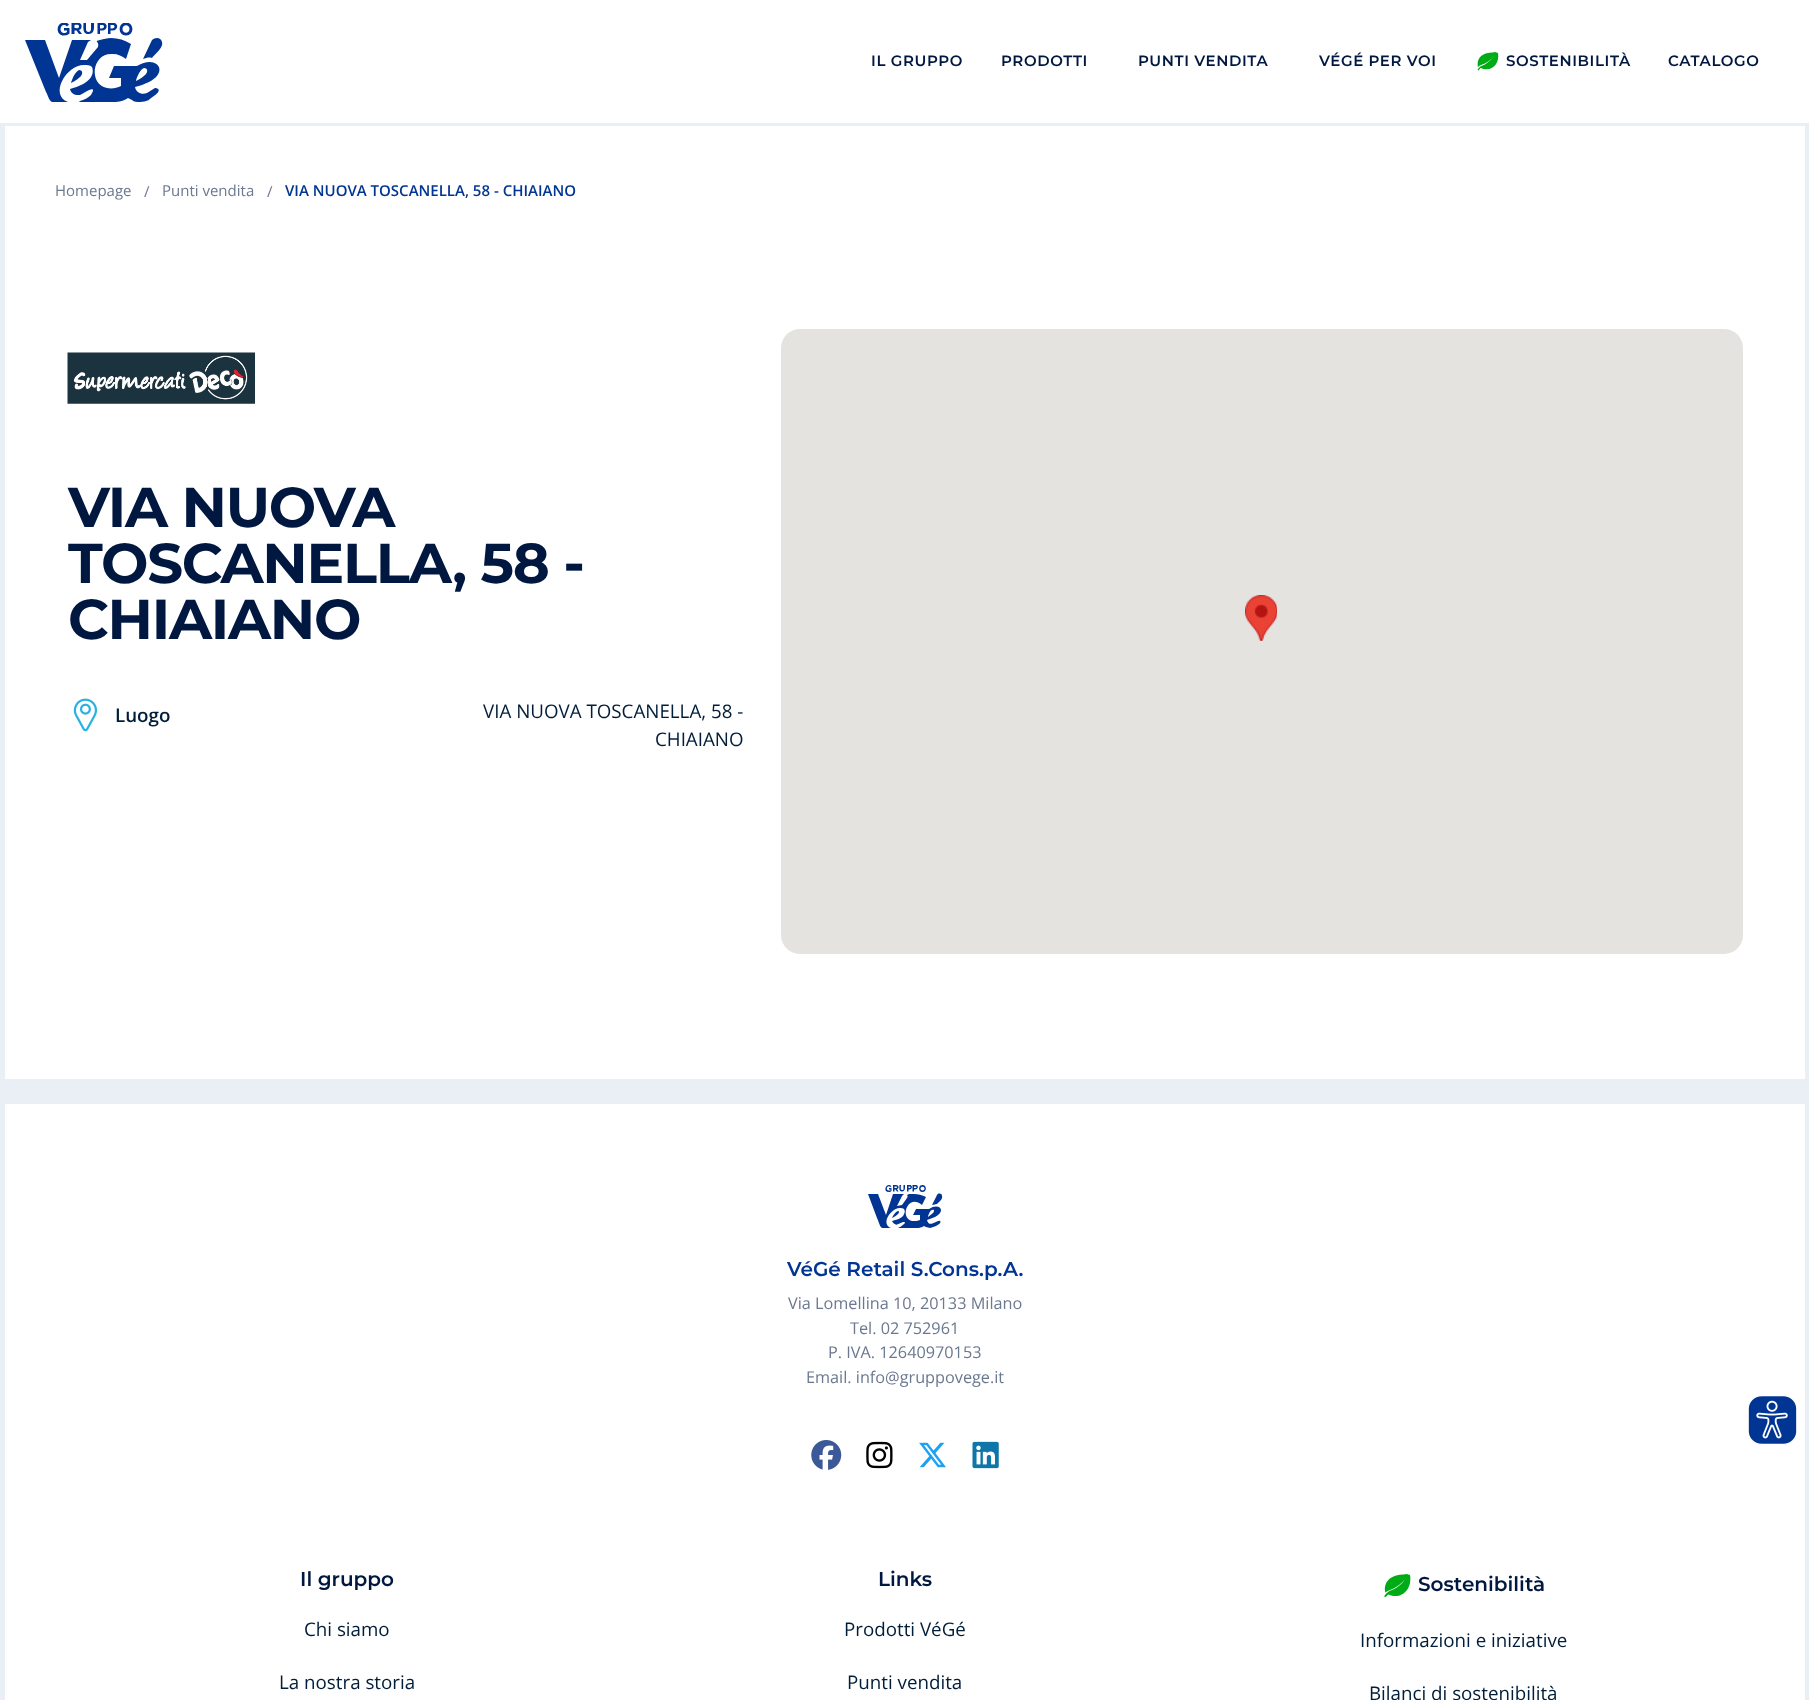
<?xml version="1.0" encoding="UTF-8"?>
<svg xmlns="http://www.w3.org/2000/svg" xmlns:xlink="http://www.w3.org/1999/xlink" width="1809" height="1700">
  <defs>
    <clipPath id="clip1"><rect x="25" y="23" width="138" height="80" /></clipPath>
    <clipPath id="clip2"><rect x="868" y="1185" width="75" height="43" /></clipPath>
  </defs>
  <rect width="100%" height="100%" fill="#eaeef5" />
  <rect width="1809" height="123" fill="#ffffff" />
  <path d="M 149 82 c 21 -11 7 -28 -12 -16 h -23 l -5 12 h 12 v 8 c -4 2 -9 3 -14 2 c -19 -4 -15 -36 6 -34 c 5 0 9 2 13 5 l 5 -15 c -6 -4 -13 -6 -20 -6 c -4 0 -7 1 -11 2 c -7 2 0 1 -2 7 l -11 13 h -7 l 8 -18 l 3 -2 h -19 l -13 38 l -14 -38 h -20 l 21 52 c 1 1 3 9 6 10 h 16 c -19 -7 -2 -37 16 -37 c 3 0 6 0 8 2 c 1 2 1 6 0 8 c -2 7 -14 12 -22 14 c 1 4 4 6 8 6 h 2 c 3 -1 14 -9 13 -4 l -2 4 c -3 3 -7 5 -11 6 l -1 1 h 35 c 1 0 9 0 14 -4 l 4 2 c 2 2 5 2 8 2 c 3 0 6 -1 9 -2 c 0 -1 13 -8 9 -11 c -1 -1 -2 -1 -3 -1 l -8 5 c -5 2 -11 0 -12 -6 c 5 -1 9 -3 14 -5 z m 13 -40 c 2 5 -7 12 -10 16 c -3 -1 -6 0 -9 1 l 9 -19 c 3 -3 9 -3 10 2 z m -18 26 c 2 0 3 1 3 2 c 1 2 -1 6 -11 11 c 0 -1 3 -11 8 -13 z m -62 4 c 0 -1 -1 -2 -3 -2 c -5 2 -8 13 -8 13 c 10 -5 12 -9 11 -11 z" fill="#003594" fill-rule="evenodd" />
  <g clip-path="url(#clip1)">
    <path d="M 64 35.5 c 2.5 0 4 -1 5.5 -2 v -5.5 h -5.5 v 2.5 h 3 v 1.5 c -1 1 -2.5 1 -3.5 1 c -6 -1.5 -2 -11.5 3.5 -6.5 l 2 -2 c -1.5 -1.5 -3 -2 -5 -2 c -8.5 0.5 -8.5 13 0 13 z" fill="#003594" />
    <path d="M 79 34 h 3 l -3 -4 c 1.5 -0.5 2.5 -1.5 2.5 -3 c 1 -5.5 -6.5 -4.5 -10 -4.5 v 11.5 h 3 v -3.5 h 2 z m 0 -7.5 c 0 2.5 -3 1.5 -4.5 1.5 v -3 c 1 0 4.5 -1 4.5 1.5 z" fill="#003594" fill-rule="evenodd" />
    <path d="M 88.5 34 c 6.5 0 5.5 -7 5.5 -11.5 h -3 v 6.5 c 0 2 -1 3 -2.5 3 c -1.5 0 -2.5 -1 -2.5 -3 v -6.5 h -2.5 c 0 4.5 -1.5 11.5 5 11.5 z" fill="#003594" />
    <path d="M 102 30.5 c 5 0 6.5 -6 2 -7.5 c -2 -1 -4.5 -0.5 -6.5 -0.5 v 11.5 h 2.5 v -3.5 z m 2 -4 c 0 2 -2.5 2 -4 2 v -3.5 c 1.5 0 4 -0.5 4 1.5 z m 8.5 4 c 5 0 6.5 -6 2 -7.5 c -2 -1 -4.5 -0.5 -6.5 -0.5 v 11.5 h 2.5 v -3.5 z m 2 -4 c 0 2 -2.5 2 -4 2 v -3.5 c 1.5 0 4 -0.5 4 1.5 z m 11.5 9 c 8.5 0 8.5 -13 0 -13 c -8.5 0 -8.5 13 0 13 z m 3.5 -6.5 c 0 5 -7 5 -7 0 c 0 -5 7 -5 7 0 z" fill="#003594" fill-rule="evenodd" />
  </g>
  <path d="M 1478.5 70.5 l -1 -0.5 c 1 -2 2.5 -3.5 4 -4 c 8.5 -3 12.5 -10.5 12.5 -10.5 c 0 0 -3.5 6.5 -13 9.5 c -1.5 0.5 -3 2 -3 2 c 0 -0.5 -3.5 -14 14.5 -14.5 l 2.5 -0.5 l 3 1 c 2 10.5 -6.5 20 -17.5 15 z" fill="#00ac15" />
  <rect x="5" y="126" width="1800" height="1574" fill="#ffffff" />
  <image x="67" y="352" width="188" height="52" xlink:href="image1.png" />
  <image x="73" y="698" width="24" height="34" xlink:href="image2.png" />
  <rect x="781" y="329" width="962" height="625" rx="19" fill="#e5e3df" />
  <image x="1245" y="595" width="32" height="46" xlink:href="image3.png" />
  <rect x="5" y="1079" width="1800" height="25" fill="#eaeef5" />
  <g clip-path="url(#clip2)">
    <path d="M 935 1217 c 12 -6 4 -15 -6 -8 h -13 l -3 6 h 7 v 5 c -2 1 -5 1 -8 1 c -13 -3 -4 -28 10 -16 l 4 -8 c -4 -2 -8 -3 -12 -3 h -5 c -4 2 0 1 -2 4 l -5 7 l -5 1 l 5 -10 l 2 -2 h -11 l -7 21 l -8 -21 h -10 l 9 24 c 5 12 2 10 14 10 c -11 -4 0 -20 9 -20 c 1 0 3 0 4 1 c 1 2 1 3 0 5 c -1 4 -8 6 -12 7 c 1 2 4 5 6 3 c 1 0 7 -4 7 -1 l -1 1 c -2 2 -4 3 -6 4 h -1 c 6 0 21 2 27 -2 l 2 1 l 4 1 c 2 0 13 -4 10 -7 c -2 -2 -11 8 -13 -1 z m 7 -21 c 1 3 -3 6 -5 8 l -5 1 l 5 -10 c 1 -2 5 -2 5 1 z m -10 14 c 3 -1 2 2 1 3 l -5 4 c 0 0 1 -6 4 -7 z m -33 2 c 0 -3 -5 1 -7 6 c 6 -3 7 -5 7 -6 z" fill="#003594" fill-rule="evenodd" />
  </g>
  <path d="M 889 1192 c 1 0 2 -0.5 2.5 -1 v -3 h -2.5 v 1.5 h 1.5 v 1 h -2 c -3.5 -0.5 -1 -6 2 -3.5 l 1 -1 c -5 -4.5 -9.5 6 -2.5 6 z" fill="#003594" />
  <path d="M 897 1191.5 h 1.5 l -1.5 -2.5 c 1 0 1.5 -1 1.5 -1.5 c 0.5 -3 -3.5 -2.5 -5.5 -2.5 v 6.5 h 1.5 v -2 h 1 z m 0 -4.5 c 0 1.5 -2 1 -2.5 1 v -1.5 c 0.5 0 2.5 -0.5 2.5 0.5 z" fill="#003594" fill-rule="evenodd" />
  <path d="M 902 1191.5 c 3.5 0 3 -4 3 -6.5 h -1.5 v 4 c 0 1 -0.5 1 -1.5 1 c -2 0 -1 -3.5 -1 -5 h -1.5 c 0 2.5 -1 6.5 2.5 6.5 z" fill="#003594" />
  <path d="M 909.5 1189.5 c 2.5 0 3.5 -3.5 1 -4.5 h -3.5 v 6.5 h 1.5 v -2 z m 1 -2.5 c 0 1.5 -1.5 1 -2 1 v -1.5 c 0.5 0 2 -0.5 2 0.5 z m 4.5 2.5 c 3 0 4 -3.5 1.5 -4.5 h -4 v 6.5 h 1.5 v -2 z m 1.5 -2.5 c 0 1.5 -1.5 1 -2.5 1 v -1.5 c 1 0 2.5 -0.5 2.5 0.5 z m 6 5 c 4.5 0 4.5 -7 0 -7 c -4.5 0 -4.5 7 0 7 z m 2 -3.5 c 0 2.5 -4 2.5 -4 0 c 0 -2.5 4 -2.5 4 0 z" fill="#003594" fill-rule="evenodd" />
  <image x="811" y="1440" width="31" height="30" xlink:href="image4.png" />
  <image x="866" y="1441" width="27" height="28" xlink:href="image5.png" />
  <image x="919" y="1442" width="27" height="26" xlink:href="image6.png" />
  <image x="972" y="1441" width="27" height="28" xlink:href="image7.png" />
  <path d="M 1386 1597 l -2 -0.5 c 1.5 -2.5 3.5 -4.5 5.5 -5.5 c 10.5 -3 16 -12.5 16 -12.5 c 0 0 -4.5 7.5 -16.5 12 c -2 0.5 -3.5 2 -3.5 2 c -0.5 0 -4.5 -17 18 -18 l 3 -0.5 l 3.5 1 c 2.5 13.5 -8 25.5 -21.5 19.5 c -1 0.5 -2 1.5 -2.5 2.5 z" fill="#00ac15" />
  <image x="1748" y="1395" width="49" height="50" xlink:href="image8.png" />
  <text x="871" y="66" style="font-family: Montserrat; font-size: 15px; font-weight: 600; letter-spacing: 0.6px; fill: #001740">IL GRUPPO</text>
  <text x="1001" y="66" style="font-family: Montserrat; font-size: 15px; font-weight: 600; letter-spacing: 0.6px; fill: #001740">PRODOTTI</text>
  <text x="1138" y="66" style="font-family: Montserrat; font-size: 15px; font-weight: 600; letter-spacing: 0.6px; fill: #001740">PUNTI VENDITA</text>
  <text x="1319" y="66" style="font-family: Montserrat; font-size: 15px; font-weight: 600; letter-spacing: 0.6px; fill: #001740">VÉGÉ PER VOI</text>
  <text x="1506" y="66" style="font-family: Montserrat; font-size: 15px; font-weight: 600; letter-spacing: 0.6px; fill: #001740">SOSTENIBILITÀ</text>
  <text x="1668" y="66" style="font-family: Montserrat; font-size: 15px; font-weight: 600; letter-spacing: 0.6px; fill: #001740">CATALOGO</text>
  <text x="55" y="196" style="font-family: Open Sans; font-size: 15px; fill: #6b7890">Homepage</text>
  <text x="144" y="197" style="font-family: Open Sans; font-size: 15px; fill: #6b7890">/</text>
  <text x="162" y="196" style="font-family: Open Sans; font-size: 15px; fill: #6b7890">Punti vendita</text>
  <text x="267" y="197" style="font-family: Open Sans; font-size: 15px; fill: #6b7890">/</text>
  <text x="285" y="196" style="font-family: Open Sans; font-size: 15px; font-weight: 600; fill: #003594">VIA NUOVA TOSCANELLA, 58 - CHIAIANO</text>
  <text x="68" y="527" style="font-family: Montserrat; font-size: 56.25px; font-weight: bold; letter-spacing: -1.25px; fill: #001740">VIA NUOVA</text>
  <text x="68" y="583" style="font-family: Montserrat; font-size: 56.25px; font-weight: bold; letter-spacing: -1.25px; fill: #001740">TOSCANELLA, 58 -</text>
  <text x="68" y="639" style="font-family: Montserrat; font-size: 56.25px; font-weight: bold; letter-spacing: -1.25px; fill: #001740">CHIAIANO</text>
  <text x="115" y="722" style="font-family: Open Sans; font-size: 18.75px; font-weight: 600; fill: #001d39">Luogo</text>
  <text x="483" y="718" style="font-family: Open Sans; font-size: 18.75px; fill: #001d39">VIA NUOVA TOSCANELLA, 58 -</text>
  <text x="655" y="746" style="font-family: Open Sans; font-size: 18.75px; fill: #001d39">CHIAIANO</text>
  <text x="787" y="1276" style="font-family: Montserrat; font-size: 20px; font-weight: 600; fill: #003594">VéGé Retail S.Cons.p.A.</text>
  <text x="788" y="1309" style="font-family: Open Sans; font-size: 16.25px; fill: #6b7890">Via Lomellina 10, 20133 Milano</text>
  <text x="850" y="1334" style="font-family: Open Sans; font-size: 16.25px; fill: #6b7890">Tel. 02 752961</text>
  <text x="828" y="1358" style="font-family: Open Sans; font-size: 16.25px; fill: #6b7890">P. IVA. 12640970153</text>
  <text x="806" y="1383" style="font-family: Open Sans; font-size: 16.25px; fill: #6b7890">Email. info@gruppovege.it</text>
  <text x="300" y="1586" style="font-family: Montserrat; font-size: 20px; font-weight: 600; fill: #001740">Il gruppo</text>
  <text x="304" y="1636" style="font-family: Open Sans; font-size: 18.75px; fill: #001d39">Chi siamo</text>
  <text x="279" y="1689" style="font-family: Open Sans; font-size: 18.75px; fill: #001d39">La nostra storia</text>
  <text x="878" y="1586" style="font-family: Montserrat; font-size: 20px; font-weight: 600; fill: #001740">Links</text>
  <text x="844" y="1636" style="font-family: Open Sans; font-size: 18.75px; fill: #001d39">Prodotti VéGé</text>
  <text x="847" y="1689" style="font-family: Open Sans; font-size: 18.75px; fill: #001d39">Punti vendita</text>
  <text x="1418" y="1591" style="font-family: Montserrat; font-size: 20px; font-weight: 600; fill: #001740">Sostenibilità</text>
  <text x="1360" y="1647" style="font-family: Open Sans; font-size: 18.75px; fill: #001d39">Informazioni e iniziative</text>
  <text x="1369" y="1700" style="font-family: Open Sans; font-size: 18.75px; fill: #001d39">Bilanci di sostenibilità</text>
</svg>
